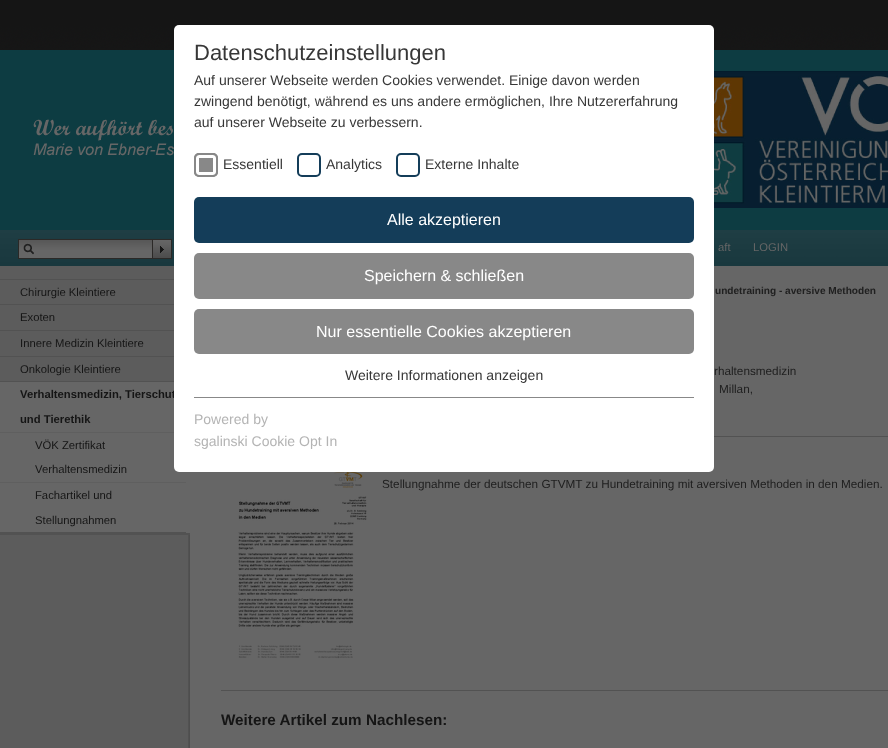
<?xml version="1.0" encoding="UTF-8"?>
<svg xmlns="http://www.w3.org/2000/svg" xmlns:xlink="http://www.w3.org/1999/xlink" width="888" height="748">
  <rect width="100%" height="100%" fill="#ffffff" />
  <image x="0" y="0" width="888" height="50" xlink:href="image1.png" />
  <rect y="50" width="888" height="180" fill="#0d3c42" />
  <image x="33" y="71" width="855" height="137" xlink:href="image2.png" />
  <rect y="230" width="888" height="36" fill="#1c4149" />
  <image x="0" y="230" width="888" height="36" xlink:href="image5.png" />
  <image x="18" y="239" width="134" height="20" xlink:href="image3.png" />
  <image x="152" y="239" width="20" height="20" xlink:href="image4.png" />
  <image x="0" y="266" width="888" height="482" xlink:href="image6.png" />
  <rect y="533" width="190" height="2" fill="#525252" />
  <rect y="279" width="174" height="1" fill="#525252" />
  <rect y="304" width="174" height="1" fill="#525252" />
  <rect y="330" width="174" height="1" fill="#525252" />
  <rect y="356" width="174" height="1" fill="#525252" />
  <rect y="382" width="190" height="151" fill="#666666" />
  <rect y="381" width="174" height="1" fill="#525252" />
  <rect y="432" width="174" height="1" fill="#5f5f5f" />
  <rect y="482" width="186" height="1" fill="#5f5f5f" />
  <rect y="532" width="186" height="1" fill="#525252" />
  <rect x="714" y="436" width="174" height="1" fill="#525252" />
  <image x="238" y="472" width="129" height="187" xlink:href="image7.png" />
  <rect x="221" y="690" width="667" height="1" fill="#525252" />
  <text x="718" y="251" style="font-family: Liberation Sans; font-size: 11.25px; fill: #666666">aft</text>
  <text x="753" y="251" style="font-family: Liberation Sans; font-size: 11.25px; fill: #666666">LOGIN</text>
  <text x="20" y="296" style="font-family: Liberation Sans; font-size: 11.25px; fill: #151515">Chirurgie Kleintiere</text>
  <text x="20" y="321" style="font-family: Liberation Sans; font-size: 11.25px; fill: #151515">Exoten</text>
  <text x="20" y="347" style="font-family: Liberation Sans; font-size: 11.25px; fill: #151515">Innere Medizin Kleintiere</text>
  <text x="20" y="373" style="font-family: Liberation Sans; font-size: 11.25px; fill: #151515">Onkologie Kleintiere</text>
  <text x="20" y="398" style="font-family: Liberation Sans; font-size: 11.25px; font-weight: bold; fill: #151515">Verhaltensmedizin, Tierschut</text>
  <rect x="174" y="25" width="540" height="447" rx="5" fill="#ffffff" />
  <text x="194" y="446" style="font-family: Liberation Sans; font-size: 14px; fill: #b4b4b4">sgalinski Cookie Opt In</text>
  <text x="194" y="424" style="font-family: Liberation Sans; font-size: 14px; fill: #b4b4b4">Powered by</text>
  <text x="345" y="380" style="font-family: Liberation Sans; font-size: 14px; fill: #373737">Weitere Informationen anzeigen</text>
  <rect x="194" y="309" width="500" height="45" rx="5" fill="#888888" />
  <text x="316" y="337" style="font-family: Liberation Sans; font-size: 16px; fill: #ffffff">Nur essentielle Cookies akzeptieren</text>
  <rect x="194" y="253" width="500" height="46" rx="5" fill="#888888" />
  <text x="364" y="281" style="font-family: Liberation Sans; font-size: 16px; fill: #ffffff">Speichern &amp; schließen</text>
  <rect x="194" y="197" width="500" height="46" rx="5" fill="#143d59" />
  <text x="387" y="225" style="font-family: Liberation Sans; font-size: 16px; fill: #ffffff">Alle akzeptieren</text>
  <text x="425" y="169" style="font-family: Liberation Sans; font-size: 14px; fill: #373737">Externe Inhalte</text>
  <rect x="397" y="154" width="22" height="22" rx="4" fill="none" stroke="#143d59" stroke-width="2" />
  <text x="326" y="169" style="font-family: Liberation Sans; font-size: 14px; fill: #373737">Analytics</text>
  <rect x="298" y="154" width="22" height="22" rx="4" fill="none" stroke="#143d59" stroke-width="2" />
  <text x="223" y="169" style="font-family: Liberation Sans; font-size: 14px; fill: #373737">Essentiell</text>
  <rect x="194" y="153" width="24" height="24" rx="5" fill="#888888" />
  <rect x="197.5" y="156.5" width="17" height="17" rx="1.5" fill="none" stroke="#ffffff" stroke-width="3" />
  <rect x="195" y="154" width="22" height="22" rx="4" fill="none" stroke="#888888" stroke-width="2" />
  <text x="194" y="127" style="font-family: Liberation Sans; font-size: 14px; fill: #373737">auf unserer Webseite zu verbessern.</text>
  <text x="194" y="106" style="font-family: Liberation Sans; font-size: 14px; fill: #373737">zwingend benötigt, während es uns andere ermöglichen, Ihre Nutzererfahrung</text>
  <text x="194" y="85" style="font-family: Liberation Sans; font-size: 14px; fill: #373737">Auf unserer Webseite werden Cookies verwendet. Einige davon werden</text>
  <text x="194" y="60" style="font-family: Liberation Sans; font-size: 22px; fill: #373737">Datenschutzeinstellungen</text>
  <rect x="194" y="397" width="500" height="1" fill="#888888" />
  <text x="20" y="423" style="font-family: Liberation Sans; font-size: 11.25px; font-weight: bold; fill: #151515">und Tierethik</text>
  <text x="35" y="449" style="font-family: Liberation Sans; font-size: 11.25px; fill: #151515">VÖK Zertifikat</text>
  <text x="35" y="473" style="font-family: Liberation Sans; font-size: 11.25px; fill: #151515">Verhaltensmedizin</text>
  <text x="35" y="499" style="font-family: Liberation Sans; font-size: 11.25px; fill: #151515">Fachartikel und</text>
  <text x="35" y="524" style="font-family: Liberation Sans; font-size: 11.25px; fill: #151515">Stellungnahmen</text>
  <text x="715" y="294" style="font-family: Liberation Sans; font-size: 10.1px; font-weight: bold; fill: #202020">undetraining - aversive Methoden</text>
  <text x="714" y="375" style="font-family: Liberation Sans; font-size: 11.75px; fill: #202020">rhaltensmedizin</text>
  <text x="719" y="393" style="font-family: Liberation Sans; font-size: 11.75px; fill: #202020">Millan,</text>
  <text x="382" y="488" style="font-family: Liberation Sans; font-size: 11.75px; fill: #202020">Stellungnahme der deutschen GTVMT zu Hundetraining mit aversiven Methoden in den Medien.</text>
  <text x="221" y="725" style="font-family: Liberation Sans; font-size: 15.25px; font-weight: bold; fill: #151515">Weitere Artikel zum Nachlesen:</text>
</svg>
